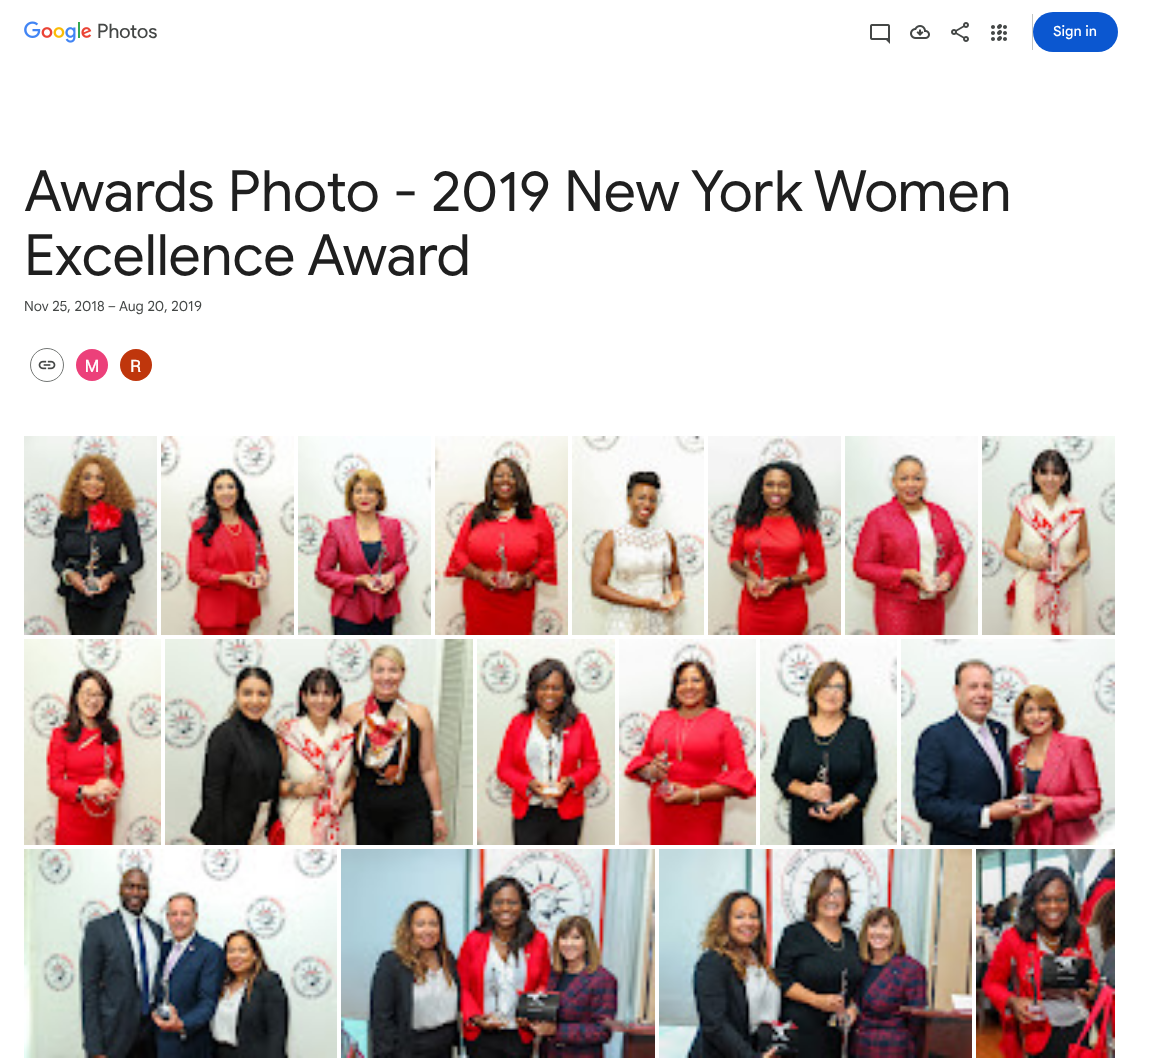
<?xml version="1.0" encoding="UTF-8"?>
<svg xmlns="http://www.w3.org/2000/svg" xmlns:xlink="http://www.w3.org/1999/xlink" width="1154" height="1058">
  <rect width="100%" height="100%" fill="#ffffff" />
  <image x="24" y="21" width="68" height="22" xlink:href="image1.png" />
  <image x="870" y="24" width="20" height="20" xlink:href="image2.png" />
  <image x="910" y="25" width="20" height="14" xlink:href="image3.png" />
  <image x="951" y="22" width="18" height="20" xlink:href="image4.png" />
  <image x="998" y="24" width="4" height="16" xlink:href="image5.png" />
  <rect x="1032" y="14" width="1" height="36" fill="#c4c7c5" />
  <circle cx="47" cy="365" r="16.5" fill="none" stroke="#747775" />
  <image x="38" y="360" width="18" height="10" xlink:href="image6.png" />
  <image x="76" y="349" width="32" height="32" xlink:href="image7.png" />
  <image x="120" y="349" width="32" height="32" xlink:href="image8.png" />
  <image x="24" y="436" width="133" height="199" xlink:href="image9.png" />
  <image x="161" y="436" width="133" height="199" xlink:href="image10.png" />
  <image x="298" y="436" width="133" height="199" xlink:href="image11.png" />
  <image x="435" y="436" width="133" height="199" xlink:href="image12.png" />
  <image x="572" y="436" width="132" height="199" xlink:href="image13.png" />
  <image x="708" y="436" width="133" height="199" xlink:href="image14.png" />
  <image x="845" y="436" width="133" height="199" xlink:href="image15.png" />
  <image x="982" y="436" width="133" height="199" xlink:href="image16.png" />
  <image x="24" y="639" width="137" height="206" xlink:href="image17.png" />
  <image x="165" y="639" width="308" height="206" xlink:href="image18.png" />
  <image x="477" y="639" width="138" height="206" xlink:href="image19.png" />
  <image x="619" y="639" width="137" height="206" xlink:href="image20.png" />
  <image x="760" y="639" width="137" height="206" xlink:href="image21.png" />
  <image x="901" y="639" width="214" height="206" xlink:href="image22.png" />
  <image x="24" y="849" width="313" height="209" xlink:href="image23.png" />
  <image x="341" y="849" width="314" height="209" xlink:href="image24.png" />
  <image x="659" y="849" width="313" height="209" xlink:href="image25.png" />
  <image x="976" y="849" width="139" height="209" xlink:href="image26.png" />
  <image x="991" y="25" width="16" height="16" xlink:href="image27.png" />
  <rect x="1033" y="12" width="85" height="40" rx="20" fill="#0b57d0" />
  <text x="97" y="38" style="font-family: Product Sans; font-size: 20px; fill: #444746">Photos</text>
  <text x="24" y="211" style="font-family: Google Sans; font-size: 57px; fill: #1f1f1f">Awards Photo - 2019 New York Women</text>
  <text x="24" y="275" style="font-family: Google Sans; font-size: 57px; fill: #1f1f1f">Excellence Award</text>
  <text x="24" y="311" style="font-family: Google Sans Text; font-size: 14px; fill: #444746">Nov 25, 2018 – Aug 20, 2019</text>
  <text x="1053" y="36" style="font-family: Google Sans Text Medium; font-size: 14px; font-weight: 500; fill: #ffffff">Sign in</text>
</svg>
